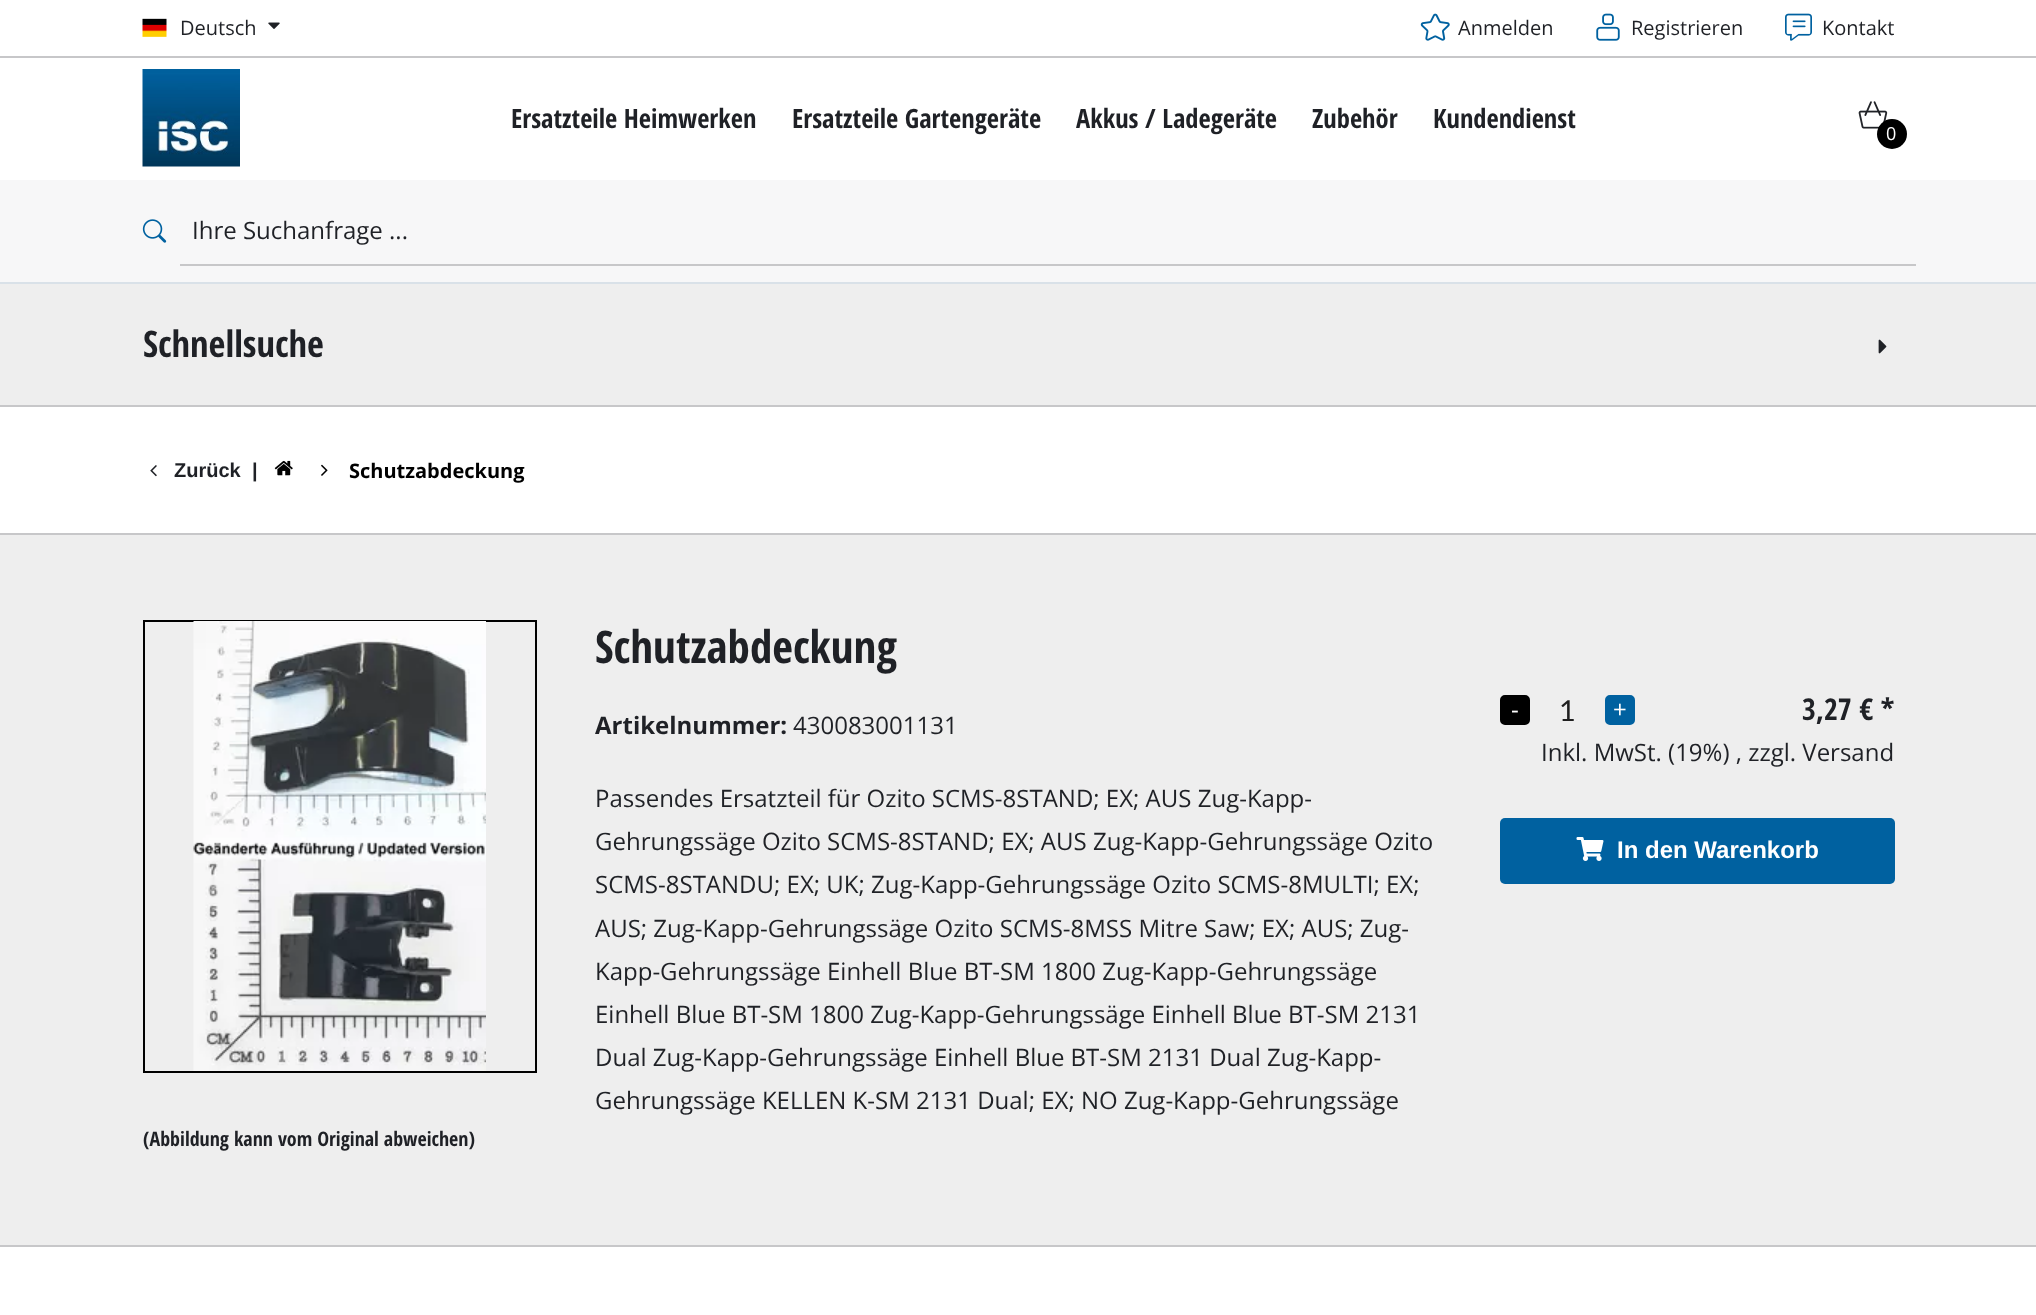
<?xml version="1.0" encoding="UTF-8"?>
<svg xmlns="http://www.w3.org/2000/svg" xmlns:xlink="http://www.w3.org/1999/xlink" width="2036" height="1315">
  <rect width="100%" height="100%" fill="#ffffff" />
  <rect y="56" width="2036" height="2" fill="#c7c7c9" />
  <image x="142" y="18" width="25" height="19" xlink:href="image1.png" />
  <image x="268" y="22" width="12" height="7" xlink:href="image2.png" />
  <image x="1420" y="13" width="30" height="28" xlink:href="image3.png" />
  <image x="1596" y="13" width="24" height="28" xlink:href="image4.png" />
  <image x="1785" y="13" width="27" height="28" xlink:href="image5.png" />
  <rect y="282" width="2036" height="2" fill="#d9e1e8" />
  <image x="142" y="69" width="98" height="98" xlink:href="image6.png" />
  <image x="1858" y="101" width="30" height="28" xlink:href="image7.png" />
  <circle cx="1892" cy="134" r="15" fill="#000000" />
  <rect y="180" width="2036" height="102" fill="#f7f7f8" />
  <image x="142" y="219" width="25" height="24" xlink:href="image8.png" />
  <rect x="180" y="264" width="1736" height="2" fill="#c7c7c9" />
  <rect y="284" width="2036" height="121" fill="#eeeeee" />
  <rect y="405" width="2036" height="2" fill="#c7c7c9" />
  <image x="1878" y="339" width="9" height="15" xlink:href="image9.png" />
  <image x="150" y="465" width="7" height="12" xlink:href="image10.png" />
  <image x="274" y="460" width="19" height="16" xlink:href="image11.png" />
  <image x="321" y="464" width="7" height="12" xlink:href="image12.png" />
  <rect y="535" width="2036" height="710" fill="#eeeeee" />
  <rect y="533" width="2036" height="2" fill="#c7c7c9" />
  <rect y="1245" width="2036" height="2" fill="#c7c7c9" />
  <rect x="1501" y="696" width="28" height="28" rx="4" fill="#000000" stroke="#000000" stroke-width="2" />
  <rect x="1606" y="696" width="28" height="28" rx="4" fill="#0061a0" stroke="#0061a0" stroke-width="2" />
  <rect x="1500" y="818" width="395" height="66" rx="5" fill="#0061a0" />
  <image x="1576" y="837" width="28" height="24" xlink:href="image13.png" />
  <rect x="144" y="621" width="392" height="451" fill="none" stroke="#000000" stroke-width="2" />
  <image x="193" y="621" width="293" height="450" xlink:href="image14.png" />
  <text x="180" y="35" style="font-family: Open Sans; font-size: 20px; fill: #1f2126">Deutsch</text>
  <text x="1458" y="35" style="font-family: Open Sans; font-size: 20px; fill: #1f2126">Anmelden</text>
  <text x="1631" y="35" style="font-family: Open Sans; font-size: 20px; fill: #1f2126">Registrieren</text>
  <text x="1822" y="35" style="font-family: Open Sans; font-size: 20px; fill: #1f2126">Kontakt</text>
  <text x="511" y="128" style="font-family: Open Sans Condensed; font-size: 26.5px; font-weight: bold; fill: #1f2126">Ersatzteile Heimwerken</text>
  <text x="792" y="128" style="font-family: Open Sans Condensed; font-size: 26.5px; font-weight: bold; fill: #1f2126">Ersatzteile Gartengeräte</text>
  <text x="1076" y="128" style="font-family: Open Sans Condensed; font-size: 26.5px; font-weight: bold; fill: #1f2126">Akkus / Ladegeräte</text>
  <text x="1312" y="128" style="font-family: Open Sans Condensed; font-size: 26.5px; font-weight: bold; fill: #1f2126">Zubehör</text>
  <text x="1433" y="128" style="font-family: Open Sans Condensed; font-size: 26.5px; font-weight: bold; fill: #1f2126">Kundendienst</text>
  <text x="1886" y="140" style="font-family: Open Sans; font-size: 18px; fill: #ffffff">0</text>
  <text x="192" y="239" style="font-family: Open Sans; font-size: 24px; fill: #1f2126">Ihre Suchanfrage ...</text>
  <text x="143" y="357" style="font-family: Open Sans Condensed; font-size: 36.5px; font-weight: bold; fill: #1f2126">Schnellsuche</text>
  <text x="174" y="477" style="font-family: Liberation Sans; font-size: 20px; font-weight: bold; fill: #1f2126">Zurück</text>
  <text x="252" y="477" style="font-family: Liberation Sans; font-size: 20px; font-weight: bold; fill: #1f2126">|</text>
  <text x="349" y="478" style="font-family: Open Sans; font-size: 20px; font-weight: bold; fill: #000000">Schutzabdeckung</text>
  <text x="595" y="663" style="font-family: Open Sans Condensed; font-size: 45px; font-weight: bold; fill: #1f2126">Schutzabdeckung</text>
  <text x="595" y="734" style="font-family: Open Sans; font-size: 24px; font-weight: bold; fill: #1f2126">Artikelnummer:</text>
  <text x="793" y="734" style="font-family: Open Sans; font-size: 24px; fill: #1f2126">430083001131</text>
  <text x="595" y="807" style="font-family: Open Sans; font-size: 24px; fill: #1f2126">Passendes Ersatzteil für Ozito SCMS-8STAND; EX; AUS Zug-Kapp-</text>
  <text x="595" y="850" style="font-family: Open Sans; font-size: 24px; fill: #1f2126">Gehrungssäge Ozito SCMS-8STAND; EX; AUS Zug-Kapp-Gehrungssäge Ozito</text>
  <text x="595" y="893" style="font-family: Open Sans; font-size: 24px; fill: #1f2126">SCMS-8STANDU; EX; UK; Zug-Kapp-Gehrungssäge Ozito SCMS-8MULTI; EX;</text>
  <text x="595" y="937" style="font-family: Open Sans; font-size: 24px; fill: #1f2126">AUS; Zug-Kapp-Gehrungssäge Ozito SCMS-8MSS Mitre Saw; EX; AUS; Zug-</text>
  <text x="595" y="980" style="font-family: Open Sans; font-size: 24px; fill: #1f2126">Kapp-Gehrungssäge Einhell Blue BT-SM 1800 Zug-Kapp-Gehrungssäge</text>
  <text x="595" y="1023" style="font-family: Open Sans; font-size: 24px; fill: #1f2126">Einhell Blue BT-SM 1800 Zug-Kapp-Gehrungssäge Einhell Blue BT-SM 2131</text>
  <text x="595" y="1066" style="font-family: Open Sans; font-size: 24px; fill: #1f2126">Dual Zug-Kapp-Gehrungssäge Einhell Blue BT-SM 2131 Dual Zug-Kapp-</text>
  <text x="595" y="1109" style="font-family: Open Sans; font-size: 24px; fill: #1f2126">Gehrungssäge KELLEN K-SM 2131 Dual; EX; NO Zug-Kapp-Gehrungssäge</text>
  <text x="1511" y="718" style="font-family: Open Sans; font-size: 24px; fill: #ffffff">-</text>
  <text x="1559" y="721" style="font-family: Lato; font-size: 29px; fill: #1f1f1f">1</text>
  <text x="1613" y="718" style="font-family: Open Sans; font-size: 24px; fill: #ffffff">+</text>
  <text x="1802" y="720" style="font-family: Open Sans Condensed; font-size: 30px; font-weight: bold; fill: #1f2126">3,27 € *</text>
  <text x="1541" y="761" style="font-family: Open Sans; font-size: 24px; fill: #1f2126">Inkl. MwSt. (19%) , zzgl. Versand</text>
  <text x="1617" y="858" style="font-family: Liberation Sans; font-size: 24px; font-weight: bold; fill: #ffffff">In den Warenkorb</text>
  <text x="143" y="1146" style="font-family: Open Sans Condensed; font-size: 20px; font-weight: bold; fill: #1f2126">(Abbildung kann vom Original abweichen)</text>
</svg>
